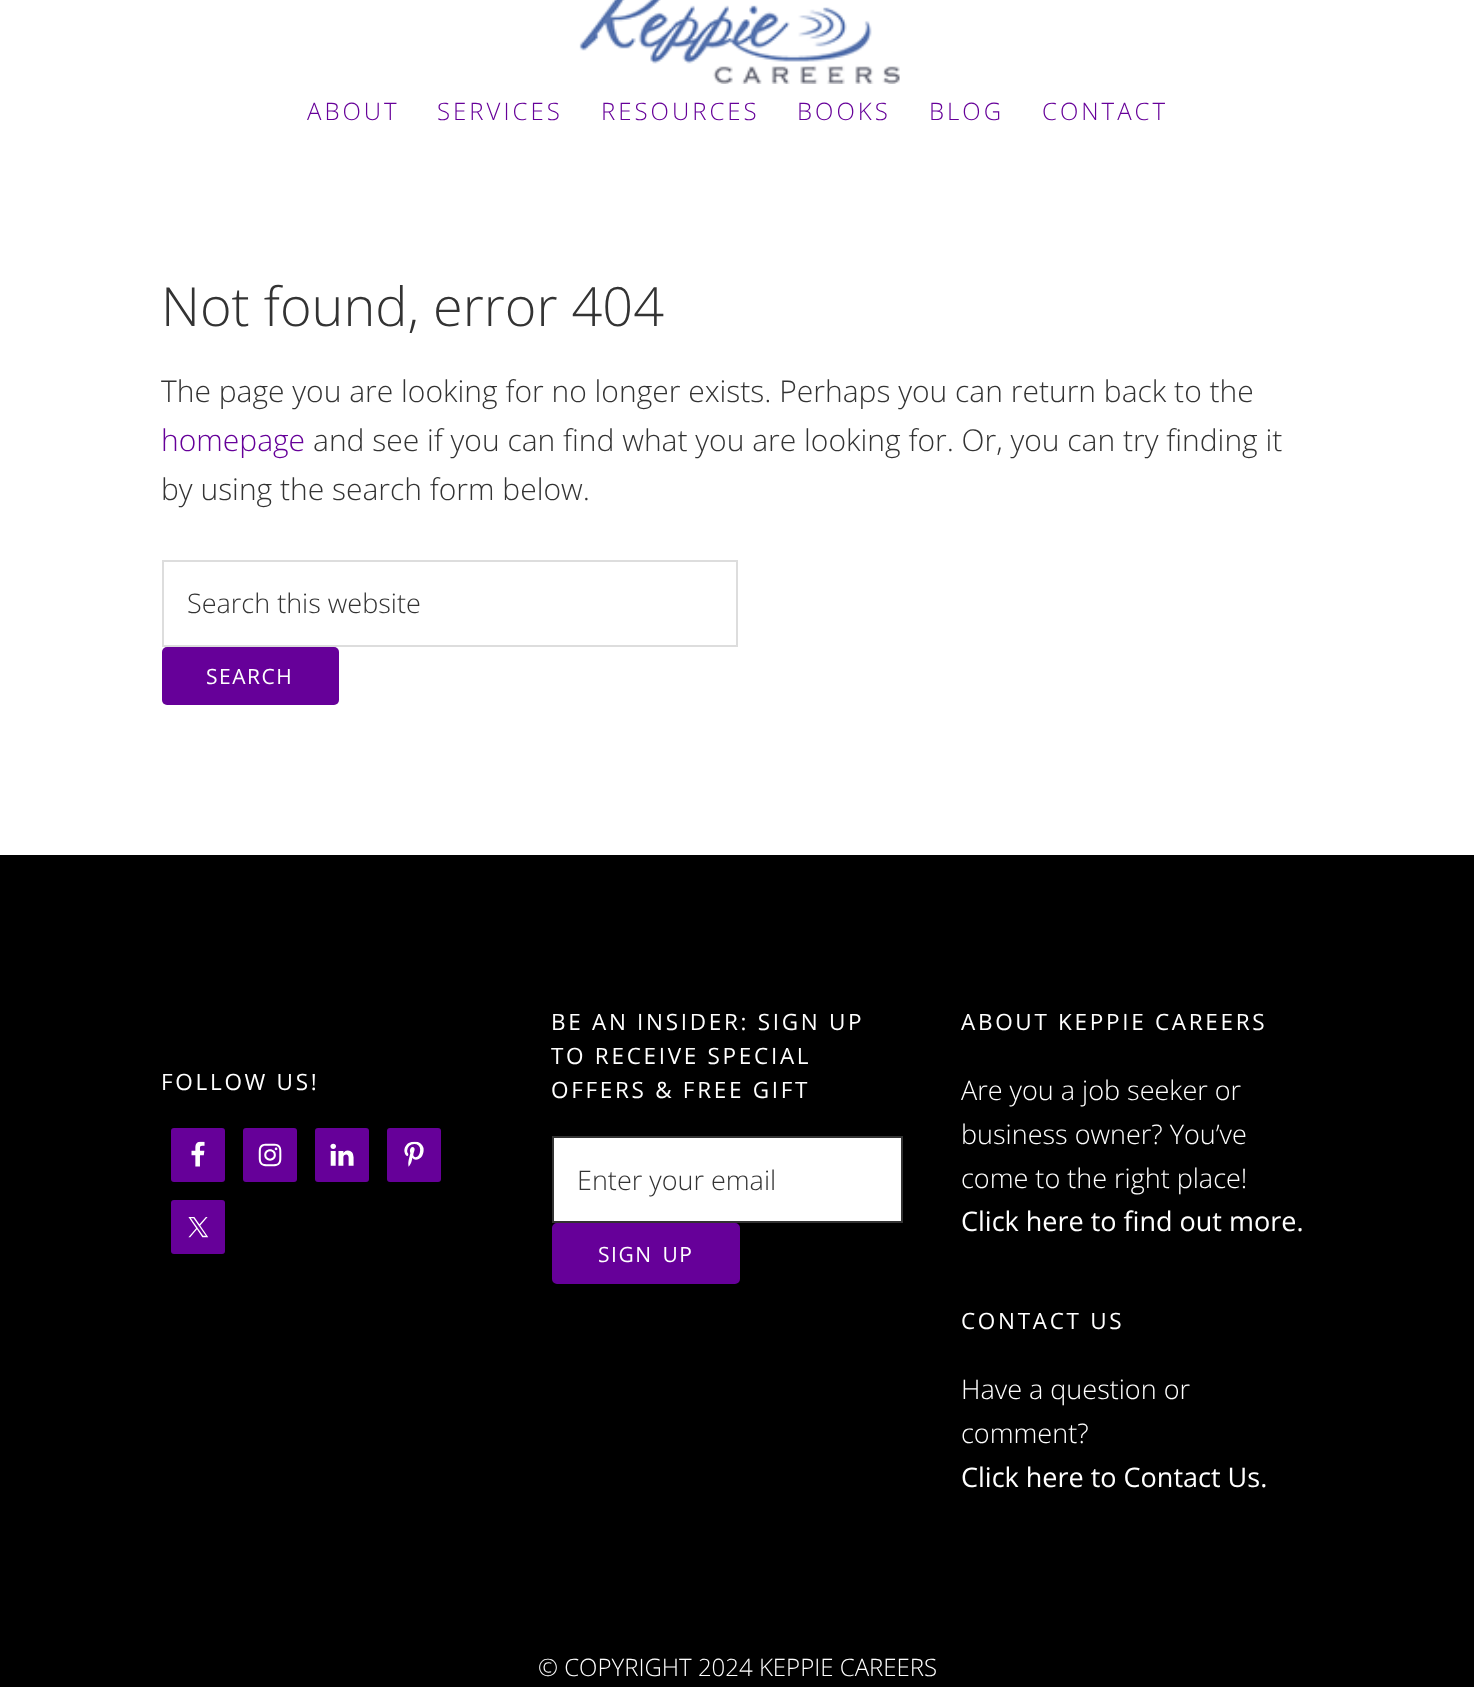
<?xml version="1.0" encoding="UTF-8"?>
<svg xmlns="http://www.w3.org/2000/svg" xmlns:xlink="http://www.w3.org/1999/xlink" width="1474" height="1687">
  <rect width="100%" height="100%" fill="#ffffff" />
  <image x="579" y="0" width="321" height="84" xlink:href="image1.png" />
  <rect x="163" y="561" width="574" height="85" fill="none" stroke="#dddddd" stroke-width="2" />
  <rect x="162" y="647" width="177" height="58" rx="5" fill="#660099" />
  <rect y="855" width="1474" height="832" fill="#000000" />
  <rect x="171" y="1128" width="54" height="54" rx="3" fill="#660099" />
  <image x="191" y="1141" width="14" height="26" xlink:href="image2.png" />
  <rect x="243" y="1128" width="54" height="54" rx="3" fill="#660099" />
  <image x="258" y="1143" width="24" height="24" xlink:href="image3.png" />
  <rect x="315" y="1128" width="54" height="54" rx="3" fill="#660099" />
  <image x="330" y="1143" width="24" height="23" xlink:href="image4.png" />
  <rect x="387" y="1128" width="54" height="54" rx="3" fill="#660099" />
  <image x="404" y="1141" width="20" height="26" xlink:href="image5.png" />
  <rect x="171" y="1200" width="54" height="54" rx="3" fill="#660099" />
  <image x="188" y="1217" width="21" height="21" xlink:href="image6.png" />
  <rect x="553" y="1137" width="349" height="85" fill="#ffffff" stroke="#333333" stroke-width="2" />
  <rect x="553" y="1224" width="186" height="59" rx="4" fill="#660099" stroke="#660099" stroke-width="2" />
  <text x="307" y="120" style="font-family: Open Sans; font-size: 24px; font-weight: 300; letter-spacing: 3px; fill: #660099">ABOUT</text>
  <text x="437" y="120" style="font-family: Open Sans; font-size: 24px; font-weight: 300; letter-spacing: 3px; fill: #660099">SERVICES</text>
  <text x="601" y="120" style="font-family: Open Sans; font-size: 24px; font-weight: 300; letter-spacing: 3px; fill: #660099">RESOURCES</text>
  <text x="797" y="120" style="font-family: Open Sans; font-size: 24px; font-weight: 300; letter-spacing: 3px; fill: #660099">BOOKS</text>
  <text x="929" y="120" style="font-family: Open Sans; font-size: 24px; font-weight: 300; letter-spacing: 3px; fill: #660099">BLOG</text>
  <text x="1042" y="120" style="font-family: Open Sans; font-size: 24px; font-weight: 300; letter-spacing: 3px; fill: #660099">CONTACT</text>
  <text x="161" y="326" style="font-family: Open Sans; font-size: 54px; font-weight: 300; fill: #333333">Not found, error 404</text>
  <text x="161" y="402" style="font-family: Open Sans; font-size: 30px; font-weight: 300; fill: #333333">The page you are looking for no longer exists. Perhaps you can return back to the</text>
  <text x="161" y="451" style="font-family: Open Sans; font-size: 30px; font-weight: 300; fill: #660099">homepage</text>
  <text x="313" y="451" style="font-family: Open Sans; font-size: 30px; font-weight: 300; fill: #333333">and see if you can find what you are looking for. Or, you can try finding it</text>
  <text x="161" y="500" style="font-family: Open Sans; font-size: 30px; font-weight: 300; fill: #333333">by using the search form below.</text>
  <text x="187" y="613" style="font-family: Open Sans; font-size: 27px; font-weight: 300; fill: #333333">Search this website</text>
  <text x="206" y="684" style="font-family: Open Sans; font-size: 21px; letter-spacing: 1.5px; fill: #ffffff">SEARCH</text>
  <text x="161" y="1090" style="font-family: Open Sans; font-size: 22.5px; letter-spacing: 2.7px; fill: #ffffff">FOLLOW US!</text>
  <text x="551" y="1030" style="font-family: Open Sans; font-size: 22.5px; letter-spacing: 2.7px; fill: #ffffff">BE AN INSIDER: SIGN UP</text>
  <text x="551" y="1064" style="font-family: Open Sans; font-size: 22.5px; letter-spacing: 2.7px; fill: #ffffff">TO RECEIVE SPECIAL</text>
  <text x="551" y="1098" style="font-family: Open Sans; font-size: 22.5px; letter-spacing: 2.7px; fill: #ffffff">OFFERS &amp; FREE GIFT</text>
  <text x="577" y="1190" style="font-family: Open Sans; font-size: 27px; font-weight: 300; fill: #333333">Enter your email</text>
  <text x="598" y="1262" word-spacing="3" style="font-family: Open Sans; font-size: 21px; letter-spacing: 1.5px; fill: #ffffff">SIGN UP</text>
  <text x="961" y="1030" style="font-family: Open Sans; font-size: 22.5px; letter-spacing: 2.7px; fill: #ffffff">ABOUT KEPPIE CAREERS</text>
  <text x="961" y="1100" style="font-family: Open Sans; font-size: 27px; font-weight: 300; fill: #ffffff">Are you a job seeker or</text>
  <text x="961" y="1144" style="font-family: Open Sans; font-size: 27px; font-weight: 300; fill: #ffffff">business owner? You’ve</text>
  <text x="961" y="1188" style="font-family: Open Sans; font-size: 27px; font-weight: 300; fill: #ffffff">come to the right place!</text>
  <text x="961" y="1231" style="font-family: Open Sans; font-size: 27px; fill: #ffffff">Click here to find out more.</text>
  <text x="961" y="1329" style="font-family: Open Sans; font-size: 22.5px; letter-spacing: 2.7px; fill: #ffffff">CONTACT US</text>
  <text x="961" y="1399" style="font-family: Open Sans; font-size: 27px; font-weight: 300; fill: #ffffff">Have a question or</text>
  <text x="961" y="1443" style="font-family: Open Sans; font-size: 27px; font-weight: 300; fill: #ffffff">comment?</text>
  <text x="961" y="1487" style="font-family: Open Sans; font-size: 27px; fill: #ffffff">Click here to Contact Us.</text>
  <text x="538" y="1676" style="font-family: Open Sans; font-size: 24px; font-weight: 300; fill: #ffffff">© COPYRIGHT 2024 KEPPIE CAREERS</text>
</svg>
